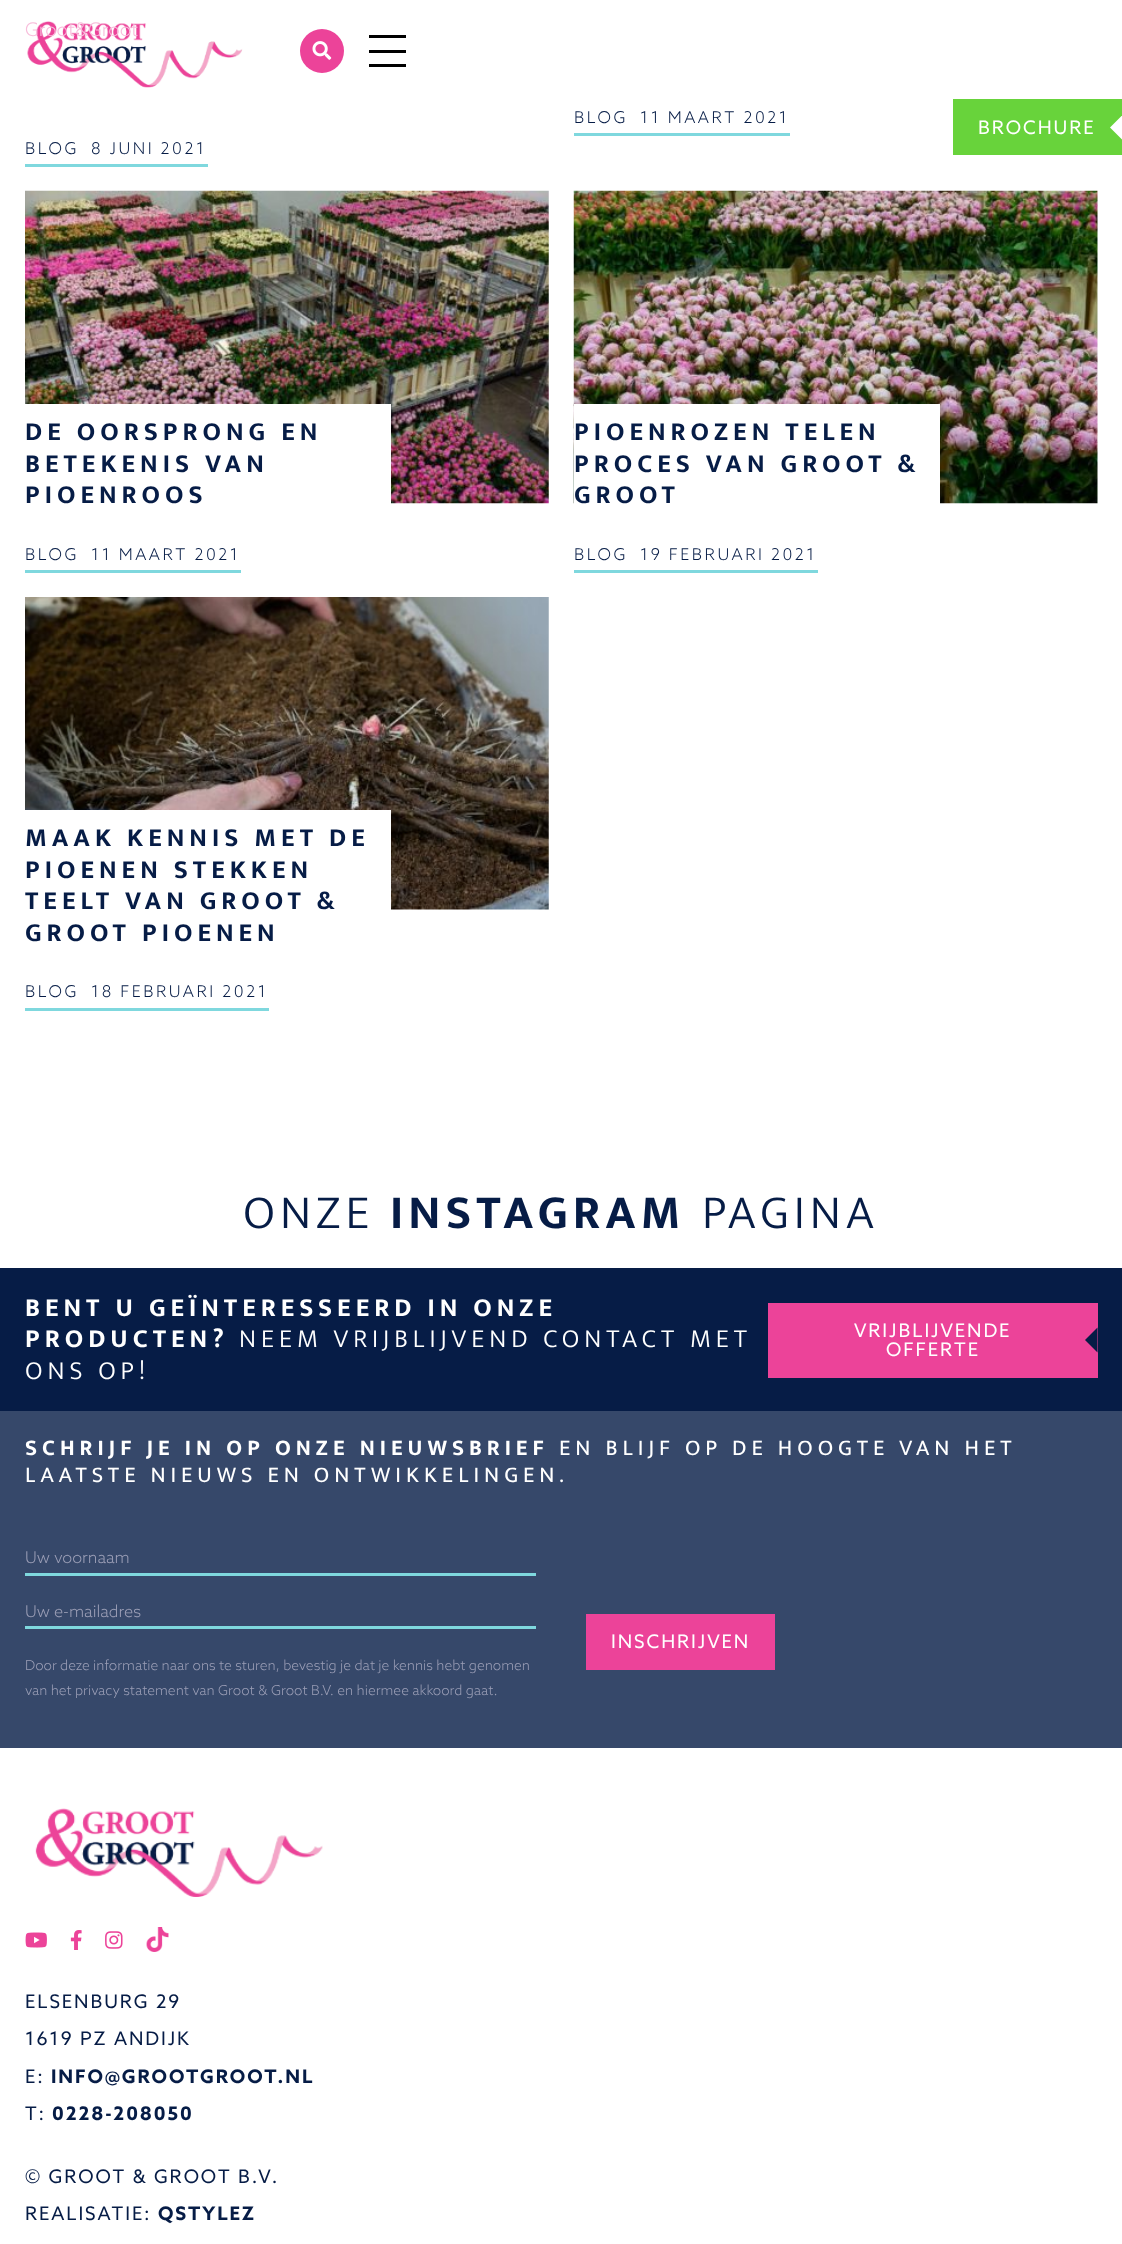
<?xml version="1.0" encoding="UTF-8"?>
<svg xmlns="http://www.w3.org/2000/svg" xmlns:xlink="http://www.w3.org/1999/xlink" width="1122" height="2244">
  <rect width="100%" height="100%" fill="#ffffff" />
  <image x="27" y="21" width="216" height="67" xlink:href="image1.png" />
  <circle cx="322" cy="51" r="22" fill="#ec4399" />
  <image x="312" y="41" width="20" height="19" xlink:href="image2.png" />
  <rect x="369" y="35" width="37" height="3" fill="#000000" />
  <rect x="369" y="50" width="37" height="3" fill="#000000" />
  <rect x="369" y="64" width="37" height="3" fill="#000000" />
  <rect x="953" y="99" width="169" height="56" fill="#68d33b" />
  <path d="M 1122.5 115 v 25 l -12.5 -12.5 z" fill="#ffffff" />
  <rect x="574" y="133" width="216" height="3" fill="#7fd8de" />
  <rect x="25" y="164" width="183" height="3" fill="#7fd8de" />
  <image x="25" y="190" width="524" height="314" xlink:href="image3.png" />
  <rect x="25" y="404" width="366" height="100" fill="#ffffff" />
  <rect x="25" y="570" width="216" height="3" fill="#7fd8de" />
  <image x="573" y="190" width="525" height="314" xlink:href="image4.png" />
  <rect x="574" y="404" width="366" height="100" fill="#ffffff" />
  <rect x="574" y="570" width="244" height="3" fill="#7fd8de" />
  <image x="25" y="597" width="524" height="313" xlink:href="image5.png" />
  <rect x="25" y="810" width="366" height="100" fill="#ffffff" />
  <rect x="25" y="1008" width="244" height="3" fill="#7fd8de" />
  <rect y="1268" width="1122" height="143" fill="#061c46" />
  <rect x="768" y="1303" width="330" height="75" fill="#ec4399" />
  <path d="M 1097.5 1327.5 v 25 l -12.5 -12.5 z" fill="#061c46" />
  <rect y="1411" width="1122" height="337" fill="#36486a" />
  <rect x="25" y="1573" width="511" height="3" fill="#7fd8de" />
  <rect x="25" y="1626" width="511" height="3" fill="#7fd8de" />
  <rect x="586" y="1614" width="189" height="56" fill="#ec4399" />
  <image x="35" y="1808" width="288" height="89" xlink:href="image6.png" />
  <image x="25" y="1932" width="22" height="16" xlink:href="image7.png" />
  <image x="70" y="1930" width="12" height="20" xlink:href="image8.png" />
  <image x="105" y="1931" width="18" height="18" xlink:href="image9.png" />
  <image x="146" y="1927" width="23" height="25" xlink:href="image10.png" />
  <text x="25" y="36" style="font-family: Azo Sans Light; font-size: 18.75px; font-weight: 300; fill: #f8bddb">Groot&amp;Groot</text>
  <text x="978" y="134" style="font-family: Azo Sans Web; font-size: 18.75px; letter-spacing: 1.9px; fill: #ffffff">BROCHURE</text>
  <text x="574" y="123" style="font-family: Azo Sans Light; font-size: 16.25px; font-weight: 300; letter-spacing: 2.5px; fill: #061c46">BLOG</text>
  <text x="640" y="123" style="font-family: Azo Sans Light; font-size: 16.25px; font-weight: 300; letter-spacing: 2.5px; fill: #061c46">11 MAART 2021</text>
  <text x="25" y="154" style="font-family: Azo Sans Light; font-size: 16.25px; font-weight: 300; letter-spacing: 2.5px; fill: #061c46">BLOG</text>
  <text x="91" y="154" style="font-family: Azo Sans Light; font-size: 16.25px; font-weight: 300; letter-spacing: 2.5px; fill: #061c46">8 JUNI 2021</text>
  <text x="25" y="440" style="font-family: Mukta; font-size: 26.25px; font-weight: bold; letter-spacing: 5px; fill: #061c46">DE OORSPRONG EN</text>
  <text x="25" y="472" style="font-family: Mukta; font-size: 26.25px; font-weight: bold; letter-spacing: 5px; fill: #061c46">BETEKENIS VAN</text>
  <text x="25" y="503" style="font-family: Mukta; font-size: 26.25px; font-weight: bold; letter-spacing: 5px; fill: #061c46">PIOENROOS</text>
  <text x="25" y="560" style="font-family: Azo Sans Light; font-size: 16.25px; font-weight: 300; letter-spacing: 2.5px; fill: #061c46">BLOG</text>
  <text x="91" y="560" style="font-family: Azo Sans Light; font-size: 16.25px; font-weight: 300; letter-spacing: 2.5px; fill: #061c46">11 MAART 2021</text>
  <text x="574" y="440" style="font-family: Mukta; font-size: 26.25px; font-weight: bold; letter-spacing: 5px; fill: #061c46">PIOENROZEN TELEN</text>
  <text x="574" y="472" style="font-family: Mukta; font-size: 26.25px; font-weight: bold; letter-spacing: 5px; fill: #061c46">PROCES VAN GROOT &amp;</text>
  <text x="574" y="503" style="font-family: Mukta; font-size: 26.25px; font-weight: bold; letter-spacing: 5px; fill: #061c46">GROOT</text>
  <text x="574" y="560" style="font-family: Azo Sans Light; font-size: 16.25px; font-weight: 300; letter-spacing: 2.5px; fill: #061c46">BLOG</text>
  <text x="640" y="560" style="font-family: Azo Sans Light; font-size: 16.25px; font-weight: 300; letter-spacing: 2.5px; fill: #061c46">19 FEBRUARI 2021</text>
  <text x="25" y="846" style="font-family: Mukta; font-size: 26.25px; font-weight: bold; letter-spacing: 5px; fill: #061c46">MAAK KENNIS MET DE</text>
  <text x="25" y="878" style="font-family: Mukta; font-size: 26.25px; font-weight: bold; letter-spacing: 5px; fill: #061c46">PIOENEN STEKKEN</text>
  <text x="25" y="909" style="font-family: Mukta; font-size: 26.25px; font-weight: bold; letter-spacing: 5px; fill: #061c46">TEELT VAN GROOT &amp;</text>
  <text x="25" y="941" style="font-family: Mukta; font-size: 26.25px; font-weight: bold; letter-spacing: 5px; fill: #061c46">GROOT PIOENEN</text>
  <text x="25" y="997" style="font-family: Azo Sans Light; font-size: 16.25px; font-weight: 300; letter-spacing: 2.5px; fill: #061c46">BLOG</text>
  <text x="91" y="997" style="font-family: Azo Sans Light; font-size: 16.25px; font-weight: 300; letter-spacing: 2.5px; fill: #061c46">18 FEBRUARI 2021</text>
  <text x="243" y="1228" style="font-family: Mukta; font-size: 48px; font-weight: 300; letter-spacing: 5px; fill: #061c46">ONZE</text>
  <text x="390" y="1228" style="font-family: Mukta; font-size: 48px; font-weight: bold; letter-spacing: 5px; fill: #061c46">INSTAGRAM</text>
  <text x="702" y="1228" style="font-family: Mukta; font-size: 48px; font-weight: 300; letter-spacing: 5px; fill: #061c46">PAGINA</text>
  <text x="25" y="1316" style="font-family: Mukta; font-size: 26.25px; font-weight: bold; letter-spacing: 5px; fill: #ffffff">BENT U GEÏNTERESSEERD IN ONZE</text>
  <text x="25" y="1347" style="font-family: Mukta; font-size: 26.25px; font-weight: bold; letter-spacing: 5px; fill: #ffffff">PRODUCTEN?</text>
  <text x="239" y="1347" style="font-family: Mukta; font-size: 26.25px; font-weight: 300; letter-spacing: 5px; fill: #ffffff">NEEM VRIJBLIJVEND CONTACT MET</text>
  <text x="25" y="1379" style="font-family: Mukta; font-size: 26.25px; font-weight: 300; letter-spacing: 5px; fill: #ffffff">ONS OP!</text>
  <text x="854" y="1337" style="font-family: Azo Sans Web; font-size: 18.75px; letter-spacing: 1.9px; fill: #ffffff">VRIJBLIJVENDE</text>
  <text x="886" y="1356" style="font-family: Azo Sans Web; font-size: 18.75px; letter-spacing: 1.9px; fill: #ffffff">OFFERTE</text>
  <text x="25" y="1455" style="font-family: Mukta; font-size: 22.5px; font-weight: bold; letter-spacing: 5px; fill: #ffffff">SCHRIJF JE IN OP ONZE NIEUWSBRIEF</text>
  <text x="559" y="1455" style="font-family: Mukta; font-size: 22.5px; letter-spacing: 5px; fill: #ffffff">EN BLIJF OP DE HOOGTE VAN HET</text>
  <text x="25" y="1482" style="font-family: Mukta; font-size: 22.5px; letter-spacing: 5px; fill: #ffffff">LAATSTE NIEUWS EN ONTWIKKELINGEN.</text>
  <text x="25" y="1563" style="font-family: Azo Sans Light; font-size: 16.25px; font-weight: 300; fill: #9b9eb6">Uw voornaam</text>
  <text x="25" y="1617" style="font-family: Azo Sans Light; font-size: 16.25px; font-weight: 300; fill: #9b9eb6">Uw e-mailadres</text>
  <text x="25" y="1670" style="font-family: Azo Sans Light; font-size: 13.75px; font-weight: 300; fill: #9b9eb6">Door deze informatie naar ons te sturen, bevestig je dat je kennis hebt genomen</text>
  <text x="25" y="1695" style="font-family: Azo Sans Light; font-size: 13.75px; font-weight: 300; fill: #9b9eb6">van het privacy statement van Groot &amp; Groot B.V. en hiermee akkoord gaat.</text>
  <text x="611" y="1648" style="font-family: Azo Sans Web; font-size: 18.75px; letter-spacing: 1.9px; fill: #ffffff">INSCHRIJVEN</text>
  <text x="25" y="2008" style="font-family: Azo Sans Web; font-size: 18.75px; letter-spacing: 1.9px; fill: #061c46">ELSENBURG 29</text>
  <text x="25" y="2045" style="font-family: Azo Sans Web; font-size: 18.75px; letter-spacing: 1.9px; fill: #061c46">1619 PZ ANDIJK</text>
  <text x="25" y="2083" style="font-family: Azo Sans Web; font-size: 18.75px; letter-spacing: 1.9px; fill: #061c46">E:</text>
  <text x="51" y="2083" style="font-family: Azo Sans Web; font-size: 18.75px; font-weight: bold; letter-spacing: 1.9px; fill: #061c46">INFO@GROOTGROOT.NL</text>
  <text x="25" y="2120" style="font-family: Azo Sans Web; font-size: 18.75px; letter-spacing: 1.9px; fill: #061c46">T:</text>
  <text x="52" y="2120" style="font-family: Azo Sans Web; font-size: 18.75px; font-weight: bold; letter-spacing: 1.9px; fill: #061c46">0228-208050</text>
  <text x="25" y="2183" style="font-family: Azo Sans Web; font-size: 18.75px; letter-spacing: 1.9px; fill: #061c46">© GROOT &amp; GROOT B.V.</text>
  <text x="25" y="2220" style="font-family: Azo Sans Web; font-size: 18.75px; letter-spacing: 1.9px; fill: #061c46">REALISATIE:</text>
  <text x="158" y="2220" style="font-family: Azo Sans Web; font-size: 18.75px; font-weight: bold; letter-spacing: 1.9px; fill: #061c46">QSTYLEZ</text>
</svg>
